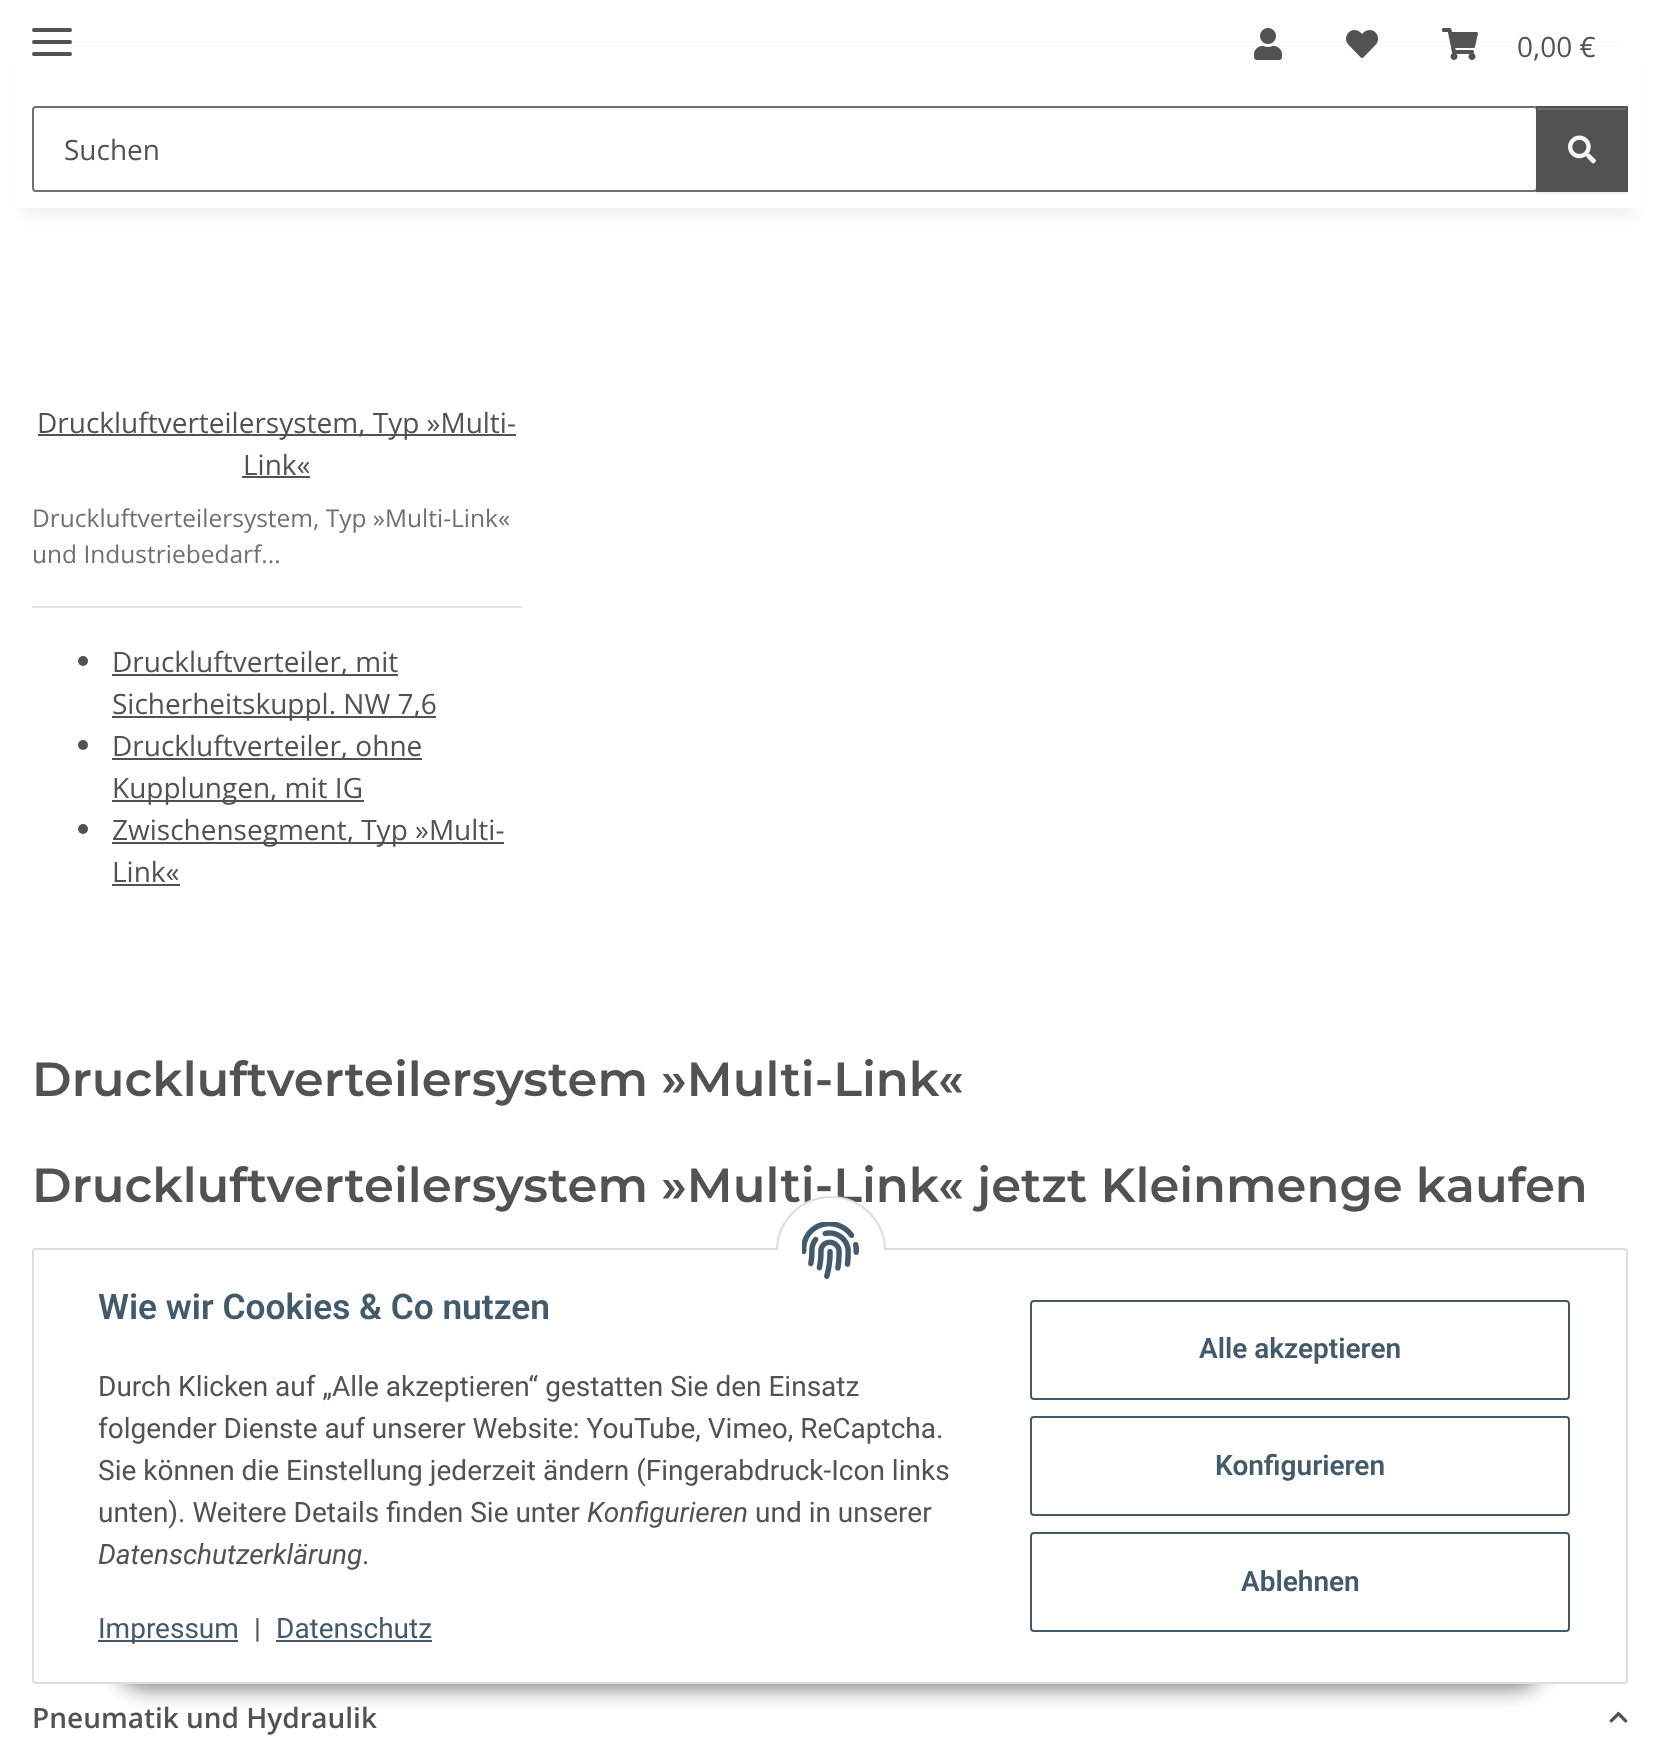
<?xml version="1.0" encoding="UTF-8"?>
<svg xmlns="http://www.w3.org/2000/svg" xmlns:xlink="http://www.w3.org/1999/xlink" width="1659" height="1747">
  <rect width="100%" height="100%" fill="#ffffff" />
  <rect x="24" y="56" width="1612" height="160" fill="#000000" fill-opacity="0.06" filter="blur(9px)" />
  <rect x="15" y="47" width="1630" height="161" fill="#ffffff" />
  <rect x="32" y="40" width="40" height="4" rx="2" fill="#525252" />
  <rect x="32" y="28" width="40" height="4" rx="2" fill="#525252" />
  <rect x="32" y="52" width="40" height="4" rx="2" fill="#525252" />
  <image x="1254" y="28" width="28" height="32" xlink:href="image1.png" />
  <image x="1346" y="30" width="33" height="28" xlink:href="image2.png" />
  <image x="1442" y="28" width="36" height="32" xlink:href="image3.png" />
  <rect x="33" y="107" width="1504" height="84" rx="3" fill="none" stroke="#707070" stroke-width="2" />
  <rect x="1536" y="108" width="92" height="86" fill="#000000" fill-opacity="0.07" filter="blur(1px)" />
  <rect x="1536" y="106" width="92" height="86" fill="#525252" />
  <rect x="1538" y="108" width="88" height="2" fill="#6c6c6c" />
  <image x="1568" y="135" width="28" height="29" xlink:href="image4.png" />
  <rect x="38" y="434" width="478" height="2" fill="#525252" />
  <rect x="242" y="476" width="68" height="2" fill="#525252" />
  <rect x="32" y="606" width="490" height="2" fill="#e6e6e6" />
  <circle cx="83" cy="661" r="5" fill="#525252" />
  <rect x="112" y="674" width="286" height="2" fill="#525252" />
  <rect x="112" y="716" width="324" height="2" fill="#525252" />
  <circle cx="83" cy="745" r="5" fill="#525252" />
  <rect x="112" y="758" width="310" height="2" fill="#525252" />
  <rect x="112" y="800" width="252" height="2" fill="#525252" />
  <circle cx="83" cy="829" r="5" fill="#525252" />
  <rect x="112" y="842" width="392" height="2" fill="#525252" />
  <rect x="112" y="884" width="68" height="2" fill="#525252" />
  <image x="1628" y="1564" width="1" height="1" xlink:href="image5.png" />
  <image x="1628" y="1638" width="1" height="1" xlink:href="image5.png" />
  <image x="1609" y="1711" width="19" height="12" xlink:href="image6.png" />
  <rect x="114" y="1626" width="1432" height="64" rx="32" fill="#000000" fill-opacity="0.45" filter="blur(10px)" />
  <rect x="33" y="1249" width="1594" height="434" rx="3" fill="#ffffff" stroke="#dddddd" stroke-width="2" />
  <rect x="98" y="1640" width="140" height="2" fill="#435a6b" />
  <rect x="276" y="1640" width="156" height="2" fill="#435a6b" />
  <rect x="1031" y="1301" width="538" height="98" rx="3" fill="none" stroke="#435a6b" stroke-width="2" />
  <rect x="1031" y="1417" width="538" height="98" rx="3" fill="none" stroke="#435a6b" stroke-width="2" />
  <rect x="1031" y="1533" width="538" height="98" rx="3" fill="none" stroke="#435a6b" stroke-width="2" />
  <text x="1517" y="57" style="font-family: Open Sans; font-size: 28px; fill: #525252">0,00 €</text>
  <text x="64" y="160" style="font-family: Open Sans; font-size: 28px; fill: #525252">Suchen</text>
  <text x="37" y="433" style="font-family: Open Sans; font-size: 28px; fill: #525252">Druckluftverteilersystem, Typ »Multi-</text>
  <text x="243" y="475" style="font-family: Open Sans; font-size: 28px; fill: #525252">Link«</text>
  <text x="32" y="527" style="font-family: Open Sans; font-size: 24.5px; fill: #707070">Druckluftverteilersystem, Typ »Multi-Link«</text>
  <text x="32" y="563" style="font-family: Open Sans; font-size: 24.5px; fill: #707070">und Industriebedarf...</text>
  <text x="112" y="672" style="font-family: Open Sans; font-size: 28px; fill: #525252">Druckluftverteiler, mit</text>
  <text x="112" y="714" style="font-family: Open Sans; font-size: 28px; fill: #525252">Sicherheitskuppl. NW 7,6</text>
  <text x="112" y="756" style="font-family: Open Sans; font-size: 28px; fill: #525252">Druckluftverteiler, ohne</text>
  <text x="112" y="798" style="font-family: Open Sans; font-size: 28px; fill: #525252">Kupplungen, mit IG</text>
  <text x="112" y="840" style="font-family: Open Sans; font-size: 28px; fill: #525252">Zwischensegment, Typ »Multi-</text>
  <text x="112" y="882" style="font-family: Open Sans; font-size: 28px; fill: #525252">Link«</text>
  <text x="32" y="1096" style="font-family: Montserrat; font-size: 48px; font-weight: 600; fill: #525252">Druckluftverteilersystem »Multi-Link«</text>
  <text x="32" y="1202" style="font-family: Montserrat; font-size: 48px; font-weight: 600; fill: #525252">Druckluftverteilersystem »Multi-Link« jetzt Kleinmenge kaufen</text>
  <text x="32" y="1728" style="font-family: Open Sans; font-size: 28px; font-weight: 600; fill: #525252">Pneumatik und Hydraulik</text>
  <circle cx="831" cy="1251" r="54" fill="#ffffff" stroke="#dddddd" stroke-width="2" />
  <rect x="776" y="1250" width="110" height="56" fill="#ffffff" />
  <image x="802" y="1222" width="57" height="57" xlink:href="image7.png" />
  <text x="98" y="1319" style="font-family: Roboto; font-size: 35.25px; font-weight: 600; fill: #435a6b">Wie wir Cookies &amp; Co nutzen</text>
  <text x="98" y="1396" style="font-family: Roboto; font-size: 28px; fill: #525252">Durch Klicken auf „Alle akzeptieren“ gestatten Sie den Einsatz</text>
  <text x="98" y="1438" style="font-family: Roboto; font-size: 28px; fill: #525252">folgender Dienste auf unserer Website: YouTube, Vimeo, ReCaptcha.</text>
  <text x="98" y="1480" style="font-family: Roboto; font-size: 28px; fill: #525252">Sie können die Einstellung jederzeit ändern (Fingerabdruck-Icon links</text>
  <text x="98" y="1522" style="font-family: Roboto; font-size: 28px; fill: #525252">unten). Weitere Details finden Sie unter</text>
  <text x="587" y="1522" style="font-family: Roboto; font-size: 28px; font-style: italic; fill: #525252">Konfigurieren</text>
  <text x="755" y="1522" style="font-family: Roboto; font-size: 28px; fill: #525252">und in unserer</text>
  <text x="98" y="1564" style="font-family: Roboto; font-size: 28px; font-style: italic; fill: #525252">Datenschutzerklärung</text>
  <text x="362" y="1564" style="font-family: Roboto; font-size: 28px; fill: #525252">.</text>
  <text x="98" y="1638" style="font-family: Roboto; font-size: 28px; fill: #435a6b">Impressum</text>
  <text x="254" y="1638" style="font-family: Roboto; font-size: 28px; fill: #525252">|</text>
  <text x="276" y="1638" style="font-family: Roboto; font-size: 28px; fill: #435a6b">Datenschutz</text>
  <text x="1199" y="1358" style="font-family: Roboto; font-size: 28px; font-weight: 600; fill: #435a6b">Alle akzeptieren</text>
  <text x="1215" y="1475" style="font-family: Roboto; font-size: 28px; font-weight: 600; fill: #435a6b">Konfigurieren</text>
  <text x="1241" y="1591" style="font-family: Roboto; font-size: 28px; font-weight: 600; fill: #435a6b">Ablehnen</text>
</svg>
